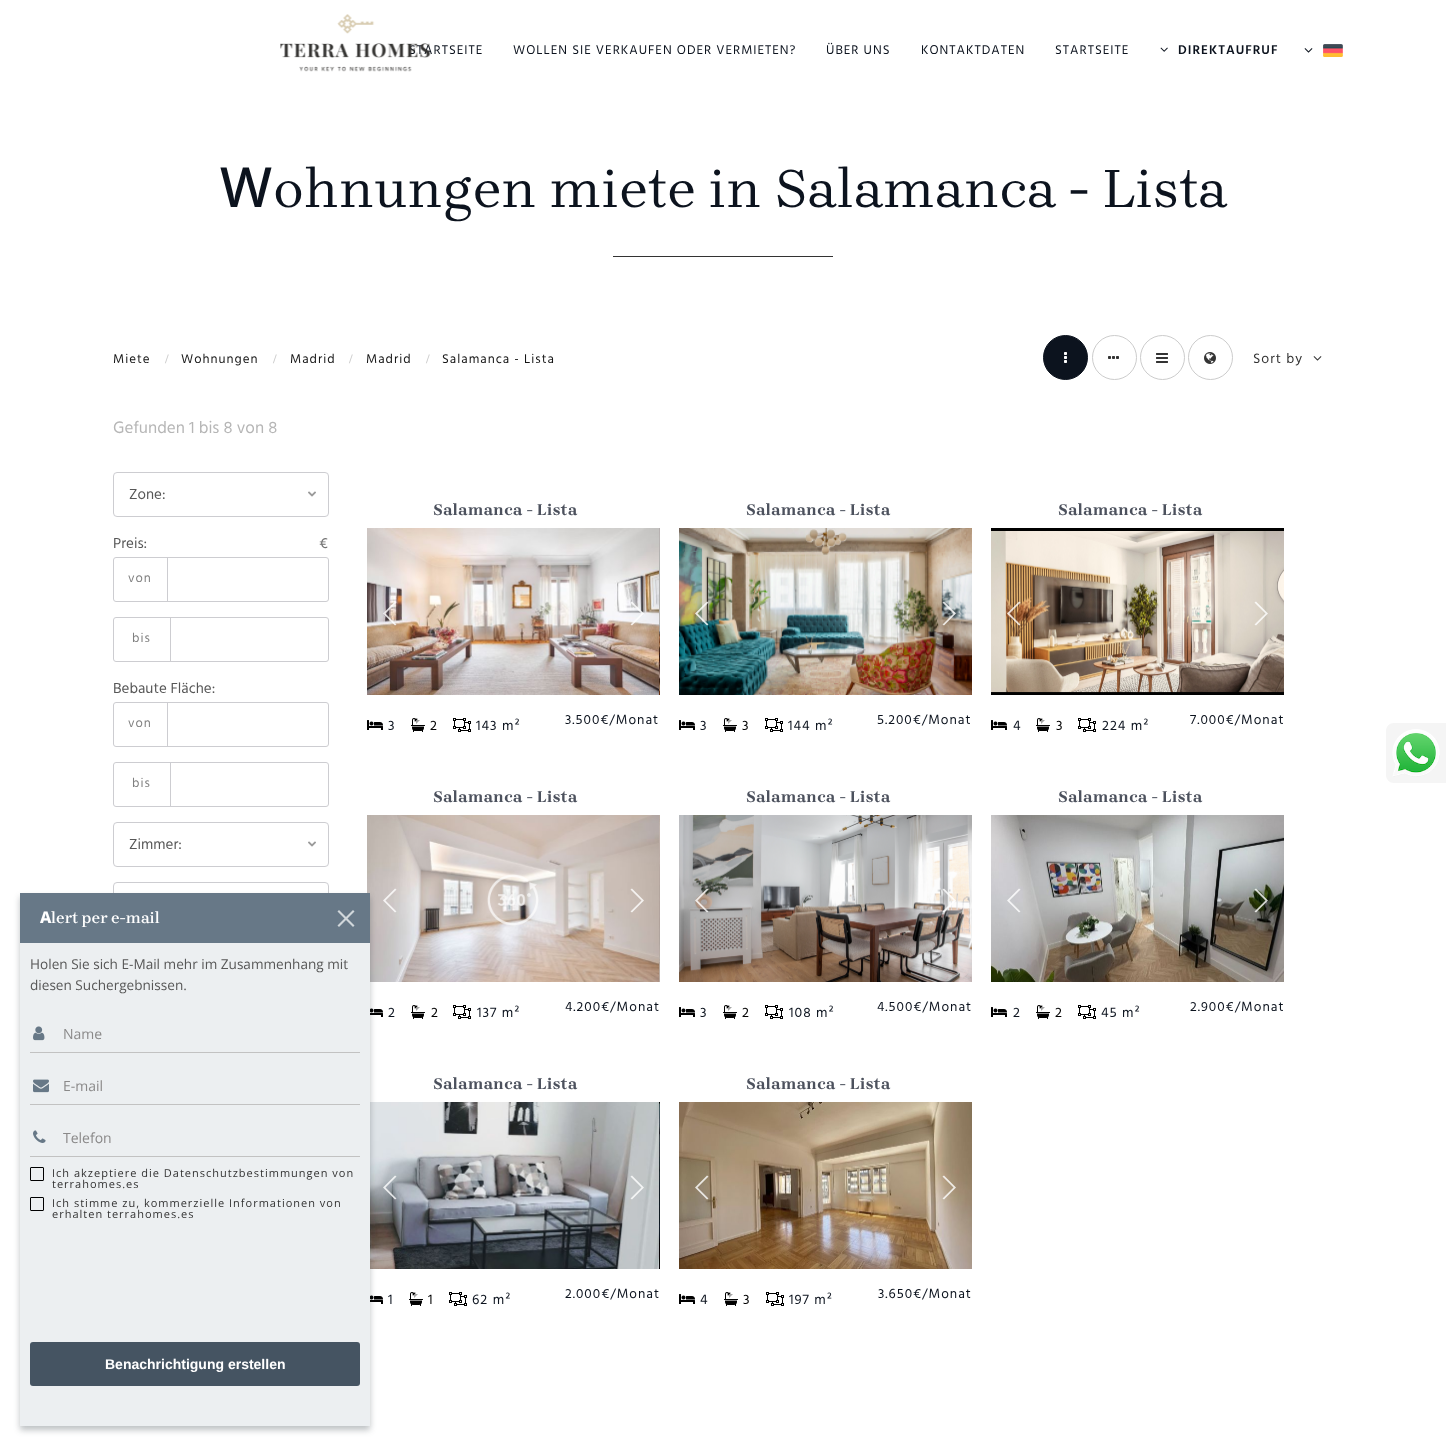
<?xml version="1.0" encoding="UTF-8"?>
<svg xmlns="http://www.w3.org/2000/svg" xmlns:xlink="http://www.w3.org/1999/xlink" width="1446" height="1446">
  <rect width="100%" height="100%" fill="#ffffff" />
  <image x="1160" y="47" width="8" height="5" xlink:href="image2.png" />
  <image x="1304" y="48" width="9" height="5" xlink:href="image3.png" />
  <image x="1323" y="44" width="20" height="13" xlink:href="image4.png" />
  <rect x="613" y="256" width="220" height="1" fill="#333333" />
  <circle cx="1065.5" cy="357.5" r="22" fill="#0c131e" stroke="#0c131e" />
  <image x="1064" y="352" width="3" height="11" xlink:href="image5.png" />
  <circle cx="1114.5" cy="357.5" r="22" fill="none" stroke="#cccccc" />
  <image x="1108" y="356" width="11" height="3" xlink:href="image6.png" />
  <circle cx="1162.5" cy="357.5" r="22" fill="none" stroke="#cccccc" />
  <image x="1156" y="353" width="12" height="10" xlink:href="image7.png" />
  <circle cx="1210.5" cy="357.5" r="22" fill="none" stroke="#cccccc" />
  <image x="1204" y="352" width="12" height="12" xlink:href="image8.png" />
  <image x="1313" y="356" width="9" height="5" xlink:href="image9.png" />
  <image x="308" y="491" width="8" height="6" xlink:href="image10.png" />
  <rect x="113.5" y="472.5" width="215" height="44" rx="3.5" fill="none" stroke="#cdcdd1" />
  <rect x="113.5" y="557.5" width="215" height="44" rx="2.5" fill="none" stroke="#cdcdd1" />
  <rect x="167" y="557" width="1" height="44" fill="#cdcdd1" />
  <rect x="113.5" y="617.5" width="215" height="44" rx="2.5" fill="none" stroke="#cdcdd1" />
  <rect x="170" y="617" width="1" height="44" fill="#cdcdd1" />
  <rect x="113.5" y="702.5" width="215" height="44" rx="2.5" fill="none" stroke="#cdcdd1" />
  <rect x="167" y="702" width="1" height="44" fill="#cdcdd1" />
  <rect x="113.5" y="762.5" width="215" height="44" rx="2.5" fill="none" stroke="#cdcdd1" />
  <rect x="170" y="762" width="1" height="44" fill="#cdcdd1" />
  <image x="308" y="841" width="8" height="6" xlink:href="image10.png" />
  <rect x="113.5" y="822.5" width="215" height="44" rx="3.5" fill="none" stroke="#cdcdd1" />
  <rect x="113.5" y="882.5" width="215" height="44" rx="3.5" fill="none" stroke="#cdcdd1" />
  <image x="367" y="528" width="292" height="167" xlink:href="image11.png" />
  <image x="659" y="528" width="1" height="167" xlink:href="image12.png" />
  <path d="M 383 613.5 l 12 -12 l 1.5 1 l -11 11 l 11 11 l -1.5 1 z" fill="#ffffff" fill-opacity="0.8" />
  <path d="M 644 613.5 l -12 12 l -1.5 -1 l 11 -11 l -11 -11 l 1.5 -1 z" fill="#ffffff" fill-opacity="0.8" />
  <image x="367" y="720" width="16" height="10" xlink:href="image13.png" />
  <image x="411" y="718" width="14" height="14" xlink:href="image14.png" />
  <image x="453" y="718" width="18" height="14" xlink:href="image15.png" />
  <image x="679" y="528" width="293" height="167" xlink:href="image16.png" />
  <path d="M 695 613.5 l 12 -12 l 1.5 1 l -11 11 l 11 11 l -1.5 1 z" fill="#ffffff" fill-opacity="0.8" />
  <path d="M 956 613.5 l -12 12 l -1.5 -1 l 11 -11 l -11 -11 l 1.5 -1 z" fill="#ffffff" fill-opacity="0.8" />
  <image x="679" y="720" width="16" height="10" xlink:href="image13.png" />
  <image x="723" y="718" width="14" height="14" xlink:href="image14.png" />
  <image x="765" y="718" width="18" height="14" xlink:href="image15.png" />
  <image x="991" y="528" width="293" height="167" xlink:href="image17.png" />
  <path d="M 1007 613.5 l 12 -12 l 1.5 1 l -11 11 l 11 11 l -1.5 1 z" fill="#ffffff" fill-opacity="0.8" />
  <path d="M 1268 613.5 l -12 12 l -1.5 -1 l 11 -11 l -11 -11 l 1.5 -1 z" fill="#ffffff" fill-opacity="0.8" />
  <image x="991" y="720" width="16" height="10" xlink:href="image13.png" />
  <image x="1036" y="718" width="14" height="14" xlink:href="image14.png" />
  <image x="1078" y="718" width="18" height="14" xlink:href="image15.png" />
  <image x="367" y="815" width="292" height="167" xlink:href="image18.png" />
  <image x="487" y="874" width="52" height="52" xlink:href="image19.png" />
  <image x="659" y="815" width="1" height="167" xlink:href="image20.png" />
  <path d="M 383 900.5 l 12 -12 l 1.5 1 l -11 11 l 11 11 l -1.5 1 z" fill="#ffffff" fill-opacity="0.8" />
  <path d="M 644 900.5 l -12 12 l -1.5 -1 l 11 -11 l -11 -11 l 1.5 -1 z" fill="#ffffff" fill-opacity="0.8" />
  <image x="370" y="1008" width="13" height="9" xlink:href="image21.png" />
  <image x="411" y="1005" width="14" height="14" xlink:href="image14.png" />
  <image x="453" y="1005" width="18" height="14" xlink:href="image15.png" />
  <image x="679" y="815" width="293" height="167" xlink:href="image22.png" />
  <path d="M 695 900.5 l 12 -12 l 1.5 1 l -11 11 l 11 11 l -1.5 1 z" fill="#ffffff" fill-opacity="0.8" />
  <path d="M 956 900.5 l -12 12 l -1.5 -1 l 11 -11 l -11 -11 l 1.5 -1 z" fill="#ffffff" fill-opacity="0.8" />
  <image x="679" y="1007" width="16" height="10" xlink:href="image13.png" />
  <image x="723" y="1005" width="14" height="14" xlink:href="image14.png" />
  <image x="765" y="1005" width="18" height="14" xlink:href="image15.png" />
  <image x="991" y="815" width="293" height="167" xlink:href="image23.png" />
  <path d="M 1007 900.5 l 12 -12 l 1.5 1 l -11 11 l 11 11 l -1.5 1 z" fill="#ffffff" fill-opacity="0.8" />
  <path d="M 1268 900.5 l -12 12 l -1.5 -1 l 11 -11 l -11 -11 l 1.5 -1 z" fill="#ffffff" fill-opacity="0.8" />
  <image x="991" y="1007" width="16" height="10" xlink:href="image13.png" />
  <image x="1036" y="1005" width="14" height="14" xlink:href="image14.png" />
  <image x="1078" y="1005" width="18" height="14" xlink:href="image15.png" />
  <image x="370" y="1102" width="289" height="167" xlink:href="image24.png" />
  <image x="659" y="1102" width="1" height="167" xlink:href="image25.png" />
  <path d="M 383 1187.5 l 12 -12 l 1.5 1 l -11 11 l 11 11 l -1.5 1 z" fill="#ffffff" fill-opacity="0.8" />
  <path d="M 644 1187.5 l -12 12 l -1.5 -1 l 11 -11 l -11 -11 l 1.5 -1 z" fill="#ffffff" fill-opacity="0.8" />
  <image x="370" y="1295" width="13" height="9" xlink:href="image21.png" />
  <image x="409" y="1292" width="14" height="14" xlink:href="image14.png" />
  <image x="449" y="1292" width="18" height="14" xlink:href="image15.png" />
  <image x="679" y="1102" width="293" height="167" xlink:href="image26.png" />
  <path d="M 695 1187.5 l 12 -12 l 1.5 1 l -11 11 l 11 11 l -1.5 1 z" fill="#ffffff" fill-opacity="0.8" />
  <path d="M 956 1187.5 l -12 12 l -1.5 -1 l 11 -11 l -11 -11 l 1.5 -1 z" fill="#ffffff" fill-opacity="0.8" />
  <image x="679" y="1294" width="16" height="10" xlink:href="image13.png" />
  <image x="724" y="1292" width="14" height="14" xlink:href="image14.png" />
  <image x="766" y="1292" width="18" height="14" xlink:href="image15.png" />
  <rect x="20" y="897" width="350" height="533" fill="#233238" fill-opacity="0.3" filter="blur(3px)" />
  <rect x="20" y="943" width="350" height="483" fill="#eceff1" />
  <rect x="20" y="893" width="350" height="50" fill="#677887" />
  <path d="M 339 910 l 15.5 15.5 l -1.5 1.5 l -15.5 -15.5 z" fill="#d1d7db" />
  <path d="M 337.5 925.5 l 15.5 -15.5 l 1.5 1.5 l -15.5 15.5 z" fill="#d1d7db" />
  <image x="33" y="1026" width="12" height="15" xlink:href="image27.png" />
  <rect x="30" y="1052" width="330" height="1" fill="#c2c2c2" />
  <image x="33" y="1079" width="16" height="14" xlink:href="image28.png" />
  <rect x="30" y="1104" width="330" height="1" fill="#c2c2c2" />
  <image x="33" y="1130" width="13" height="13" xlink:href="image29.png" />
  <rect x="30" y="1156" width="330" height="1" fill="#c2c2c2" />
  <rect x="30.5" y="1167.5" width="13" height="13" rx="0.5" fill="none" stroke="#000000" />
  <rect x="30.5" y="1197.5" width="13" height="13" rx="0.5" fill="none" stroke="#000000" />
  <rect x="30" y="1342" width="330" height="44" rx="3" fill="#455462" />
  <path d="M 1394 723 h 52 v 60 h -52 c -4.5 0 -8 -3.5 -8 -8 v -44 c 0 -4.5 3.5 -8 8 -8 z" fill="#f5f5f5" />
  <image x="1392" y="729" width="48" height="48" xlink:href="image30.png" />
  <text x="409" y="54" style="font-family: Hind; font-size: 13px; letter-spacing: 1px; fill: #0c131e">STARTSEITE</text>
  <image x="280" y="14" width="151" height="58" xlink:href="image1.png" />
  <text x="513" y="54" style="font-family: Hind; font-size: 13px; letter-spacing: 1px; fill: #0c131e">WOLLEN SIE VERKAUFEN ODER VERMIETEN?</text>
  <text x="826" y="54" style="font-family: Hind; font-size: 13px; letter-spacing: 1px; fill: #0c131e">ÜBER UNS</text>
  <text x="921" y="54" style="font-family: Hind; font-size: 13px; letter-spacing: 1px; fill: #0c131e">KONTAKTDATEN</text>
  <text x="1055" y="54" style="font-family: Hind; font-size: 13px; letter-spacing: 1px; fill: #0c131e">STARTSEITE</text>
  <text x="1178" y="54" style="font-family: Hind; font-size: 13px; font-weight: 600; letter-spacing: 1px; fill: #0c131e">DIREKTAUFRUF</text>
  <text x="220" y="207" style="font-family: Noto Sans; font-size: 55.25px; font-weight: 500; fill: #0c131e">W</text>
  <text x="273" y="207" style="font-family: 'Brygada 1918'; font-size: 55.25px; fill: #0c131e">ohnungen miete in Salamanca - Lista</text>
  <text x="113" y="363" style="font-family: Hind; font-size: 13px; letter-spacing: 1px; fill: #151515">Miete</text>
  <text x="165" y="363" style="font-family: Liberation Serif; font-size: 13px; font-weight: bold; letter-spacing: 1px; fill: #cccccc">/</text>
  <text x="181" y="363" style="font-family: Hind; font-size: 13px; letter-spacing: 1px; fill: #151515">Wohnungen</text>
  <text x="273" y="363" style="font-family: Liberation Serif; font-size: 13px; font-weight: bold; letter-spacing: 1px; fill: #cccccc">/</text>
  <text x="290" y="363" style="font-family: Hind; font-size: 13px; letter-spacing: 1px; fill: #151515">Madrid</text>
  <text x="349" y="363" style="font-family: Liberation Serif; font-size: 13px; font-weight: bold; letter-spacing: 1px; fill: #cccccc">/</text>
  <text x="366" y="363" style="font-family: Hind; font-size: 13px; letter-spacing: 1px; fill: #151515">Madrid</text>
  <text x="426" y="363" style="font-family: Liberation Serif; font-size: 13px; font-weight: bold; letter-spacing: 1px; fill: #cccccc">/</text>
  <text x="442" y="363" style="font-family: Hind; font-size: 13px; letter-spacing: 1px; fill: #151515">Salamanca - Lista</text>
  <text x="1253" y="363" style="font-family: Hind; font-size: 14px; letter-spacing: 1px; fill: #333333">Sort by</text>
  <text x="113" y="433" style="font-family: Hind; font-size: 17px; fill: #b6b6b6">Gefunden 1 bis 8 von 8</text>
  <text x="129" y="499" style="font-family: Hind; font-size: 15px; fill: #575757">Zone:</text>
  <text x="113" y="548" style="font-family: Hind; font-size: 15px; fill: #575757">Preis:</text>
  <text x="319" y="548" style="font-family: Hind; font-size: 15px; letter-spacing: 1px; fill: #737373">€</text>
  <text x="128" y="582" style="font-family: Hind; font-size: 13px; letter-spacing: 1px; fill: #808080">von</text>
  <text x="132" y="642" style="font-family: Hind; font-size: 13px; letter-spacing: 1px; fill: #808080">bis</text>
  <text x="113" y="693" style="font-family: Hind; font-size: 15px; fill: #575757">Bebaute Fläche:</text>
  <text x="128" y="727" style="font-family: Hind; font-size: 13px; letter-spacing: 1px; fill: #808080">von</text>
  <text x="132" y="787" style="font-family: Hind; font-size: 13px; letter-spacing: 1px; fill: #808080">bis</text>
  <text x="129" y="849" style="font-family: Hind; font-size: 15px; fill: #575757">Zimmer:</text>
  <text x="433" y="515" style="font-family: 'Brygada 1918'; font-size: 16px; font-weight: bold; letter-spacing: 0.5px; fill: #4c515d">Salamanca - Lista</text>
  <text x="388" y="730" style="font-family: Hind; font-size: 14px; letter-spacing: 1px; fill: #0c131e">3</text>
  <text x="430" y="730" style="font-family: Hind; font-size: 14px; letter-spacing: 1px; fill: #000000">2</text>
  <text x="476" y="730" style="font-family: Hind; font-size: 14px; letter-spacing: 1px; fill: #0c131e">143 m²</text>
  <text x="565" y="724" style="font-family: Hind; font-size: 13.6px; letter-spacing: 1px; fill: #0c131e">3.500€/Monat</text>
  <text x="746" y="515" style="font-family: 'Brygada 1918'; font-size: 16px; font-weight: bold; letter-spacing: 0.5px; fill: #4c515d">Salamanca - Lista</text>
  <text x="700" y="730" style="font-family: Hind; font-size: 14px; letter-spacing: 1px; fill: #0c131e">3</text>
  <text x="742" y="730" style="font-family: Hind; font-size: 14px; letter-spacing: 1px; fill: #000000">3</text>
  <text x="788" y="730" style="font-family: Hind; font-size: 14px; letter-spacing: 1px; fill: #0c131e">144 m²</text>
  <text x="877" y="724" style="font-family: Hind; font-size: 13.6px; letter-spacing: 1px; fill: #0c131e">5.200€/Monat</text>
  <text x="1058" y="515" style="font-family: 'Brygada 1918'; font-size: 16px; font-weight: bold; letter-spacing: 0.5px; fill: #4c515d">Salamanca - Lista</text>
  <text x="1013" y="730" style="font-family: Hind; font-size: 14px; letter-spacing: 1px; fill: #0c131e">4</text>
  <text x="1056" y="730" style="font-family: Hind; font-size: 14px; letter-spacing: 1px; fill: #000000">3</text>
  <text x="1102" y="730" style="font-family: Hind; font-size: 14px; letter-spacing: 1px; fill: #0c131e">224 m²</text>
  <text x="1190" y="724" style="font-family: Hind; font-size: 13.6px; letter-spacing: 1px; fill: #0c131e">7.000€/Monat</text>
  <text x="433" y="802" style="font-family: 'Brygada 1918'; font-size: 16px; font-weight: bold; letter-spacing: 0.5px; fill: #4c515d">Salamanca - Lista</text>
  <text x="388" y="1017" style="font-family: Hind; font-size: 14px; letter-spacing: 1px; fill: #0c131e">2</text>
  <text x="431" y="1017" style="font-family: Hind; font-size: 14px; letter-spacing: 1px; fill: #000000">2</text>
  <text x="477" y="1017" style="font-family: Hind; font-size: 14px; letter-spacing: 1px; fill: #0c131e">137 m²</text>
  <text x="565" y="1011" style="font-family: Hind; font-size: 13.6px; letter-spacing: 1px; fill: #0c131e">4.200€/Monat</text>
  <text x="746" y="802" style="font-family: 'Brygada 1918'; font-size: 16px; font-weight: bold; letter-spacing: 0.5px; fill: #4c515d">Salamanca - Lista</text>
  <text x="700" y="1017" style="font-family: Hind; font-size: 14px; letter-spacing: 1px; fill: #0c131e">3</text>
  <text x="742" y="1017" style="font-family: Hind; font-size: 14px; letter-spacing: 1px; fill: #000000">2</text>
  <text x="789" y="1017" style="font-family: Hind; font-size: 14px; letter-spacing: 1px; fill: #0c131e">108 m²</text>
  <text x="877" y="1011" style="font-family: Hind; font-size: 13.6px; letter-spacing: 1px; fill: #0c131e">4.500€/Monat</text>
  <text x="1058" y="802" style="font-family: 'Brygada 1918'; font-size: 16px; font-weight: bold; letter-spacing: 0.5px; fill: #4c515d">Salamanca - Lista</text>
  <text x="1013" y="1017" style="font-family: Hind; font-size: 14px; letter-spacing: 1px; fill: #0c131e">2</text>
  <text x="1055" y="1017" style="font-family: Hind; font-size: 14px; letter-spacing: 1px; fill: #000000">2</text>
  <text x="1101" y="1017" style="font-family: Hind; font-size: 14px; letter-spacing: 1px; fill: #0c131e">45 m²</text>
  <text x="1190" y="1011" style="font-family: Hind; font-size: 13.6px; letter-spacing: 1px; fill: #0c131e">2.900€/Monat</text>
  <text x="433" y="1089" style="font-family: 'Brygada 1918'; font-size: 16px; font-weight: bold; letter-spacing: 0.5px; fill: #4c515d">Salamanca - Lista</text>
  <text x="388" y="1304" style="font-family: Hind; font-size: 14px; letter-spacing: 1px; fill: #0c131e">1</text>
  <text x="428" y="1304" style="font-family: Hind; font-size: 14px; letter-spacing: 1px; fill: #000000">1</text>
  <text x="472" y="1304" style="font-family: Hind; font-size: 14px; letter-spacing: 1px; fill: #0c131e">62 m²</text>
  <text x="565" y="1298" style="font-family: Hind; font-size: 13.6px; letter-spacing: 1px; fill: #0c131e">2.000€/Monat</text>
  <text x="746" y="1089" style="font-family: 'Brygada 1918'; font-size: 16px; font-weight: bold; letter-spacing: 0.5px; fill: #4c515d">Salamanca - Lista</text>
  <text x="700" y="1304" style="font-family: Hind; font-size: 14px; letter-spacing: 1px; fill: #0c131e">4</text>
  <text x="743" y="1304" style="font-family: Hind; font-size: 14px; letter-spacing: 1px; fill: #000000">3</text>
  <text x="789" y="1304" style="font-family: Hind; font-size: 14px; letter-spacing: 1px; fill: #0c131e">197 m²</text>
  <text x="878" y="1298" style="font-family: Hind; font-size: 13.6px; letter-spacing: 1px; fill: #0c131e">3.650€/Monat</text>
  <text x="40" y="923" style="font-family: Noto Sans; font-size: 16px; font-weight: 800; fill: #ffffff">A</text>
  <text x="51" y="923" style="font-family: 'Brygada 1918'; font-size: 16px; font-weight: 600; fill: #ffffff">lert per e-mail</text>
  <text x="30" y="969" style="font-family: Open Sans; font-size: 13.6px; fill: #575757">Holen Sie sich E-Mail mehr im Zusammenhang mit</text>
  <text x="30" y="990" style="font-family: Open Sans; font-size: 13.6px; fill: #575757">diesen Suchergebnissen.</text>
  <text x="63" y="1039" style="font-family: Open Sans; font-size: 14px; fill: #8a8989">Name</text>
  <text x="63" y="1091" style="font-family: Open Sans; font-size: 14px; fill: #8a8989">E-mail</text>
  <text x="63" y="1143" style="font-family: Open Sans; font-size: 14px; fill: #8a8989">Telefon</text>
  <text x="52" y="1177" style="font-family: Open Sans; font-size: 11px; letter-spacing: 1px; fill: #333333">Ich akzeptiere die Datenschutzbestimmungen von</text>
  <text x="52" y="1188" style="font-family: Open Sans; font-size: 11px; letter-spacing: 1px; fill: #333333">terrahomes.es</text>
  <text x="52" y="1207" style="font-family: Open Sans; font-size: 11px; letter-spacing: 1px; fill: #333333">Ich stimme zu, kommerzielle Informationen von</text>
  <text x="52" y="1218" style="font-family: Open Sans; font-size: 11px; letter-spacing: 1px; fill: #333333">erhalten terrahomes.es</text>
  <text x="105" y="1369" style="font-family: Liberation Sans; font-size: 14px; font-weight: bold; fill: #ffffff">Benachrichtigung erstellen</text>
</svg>
